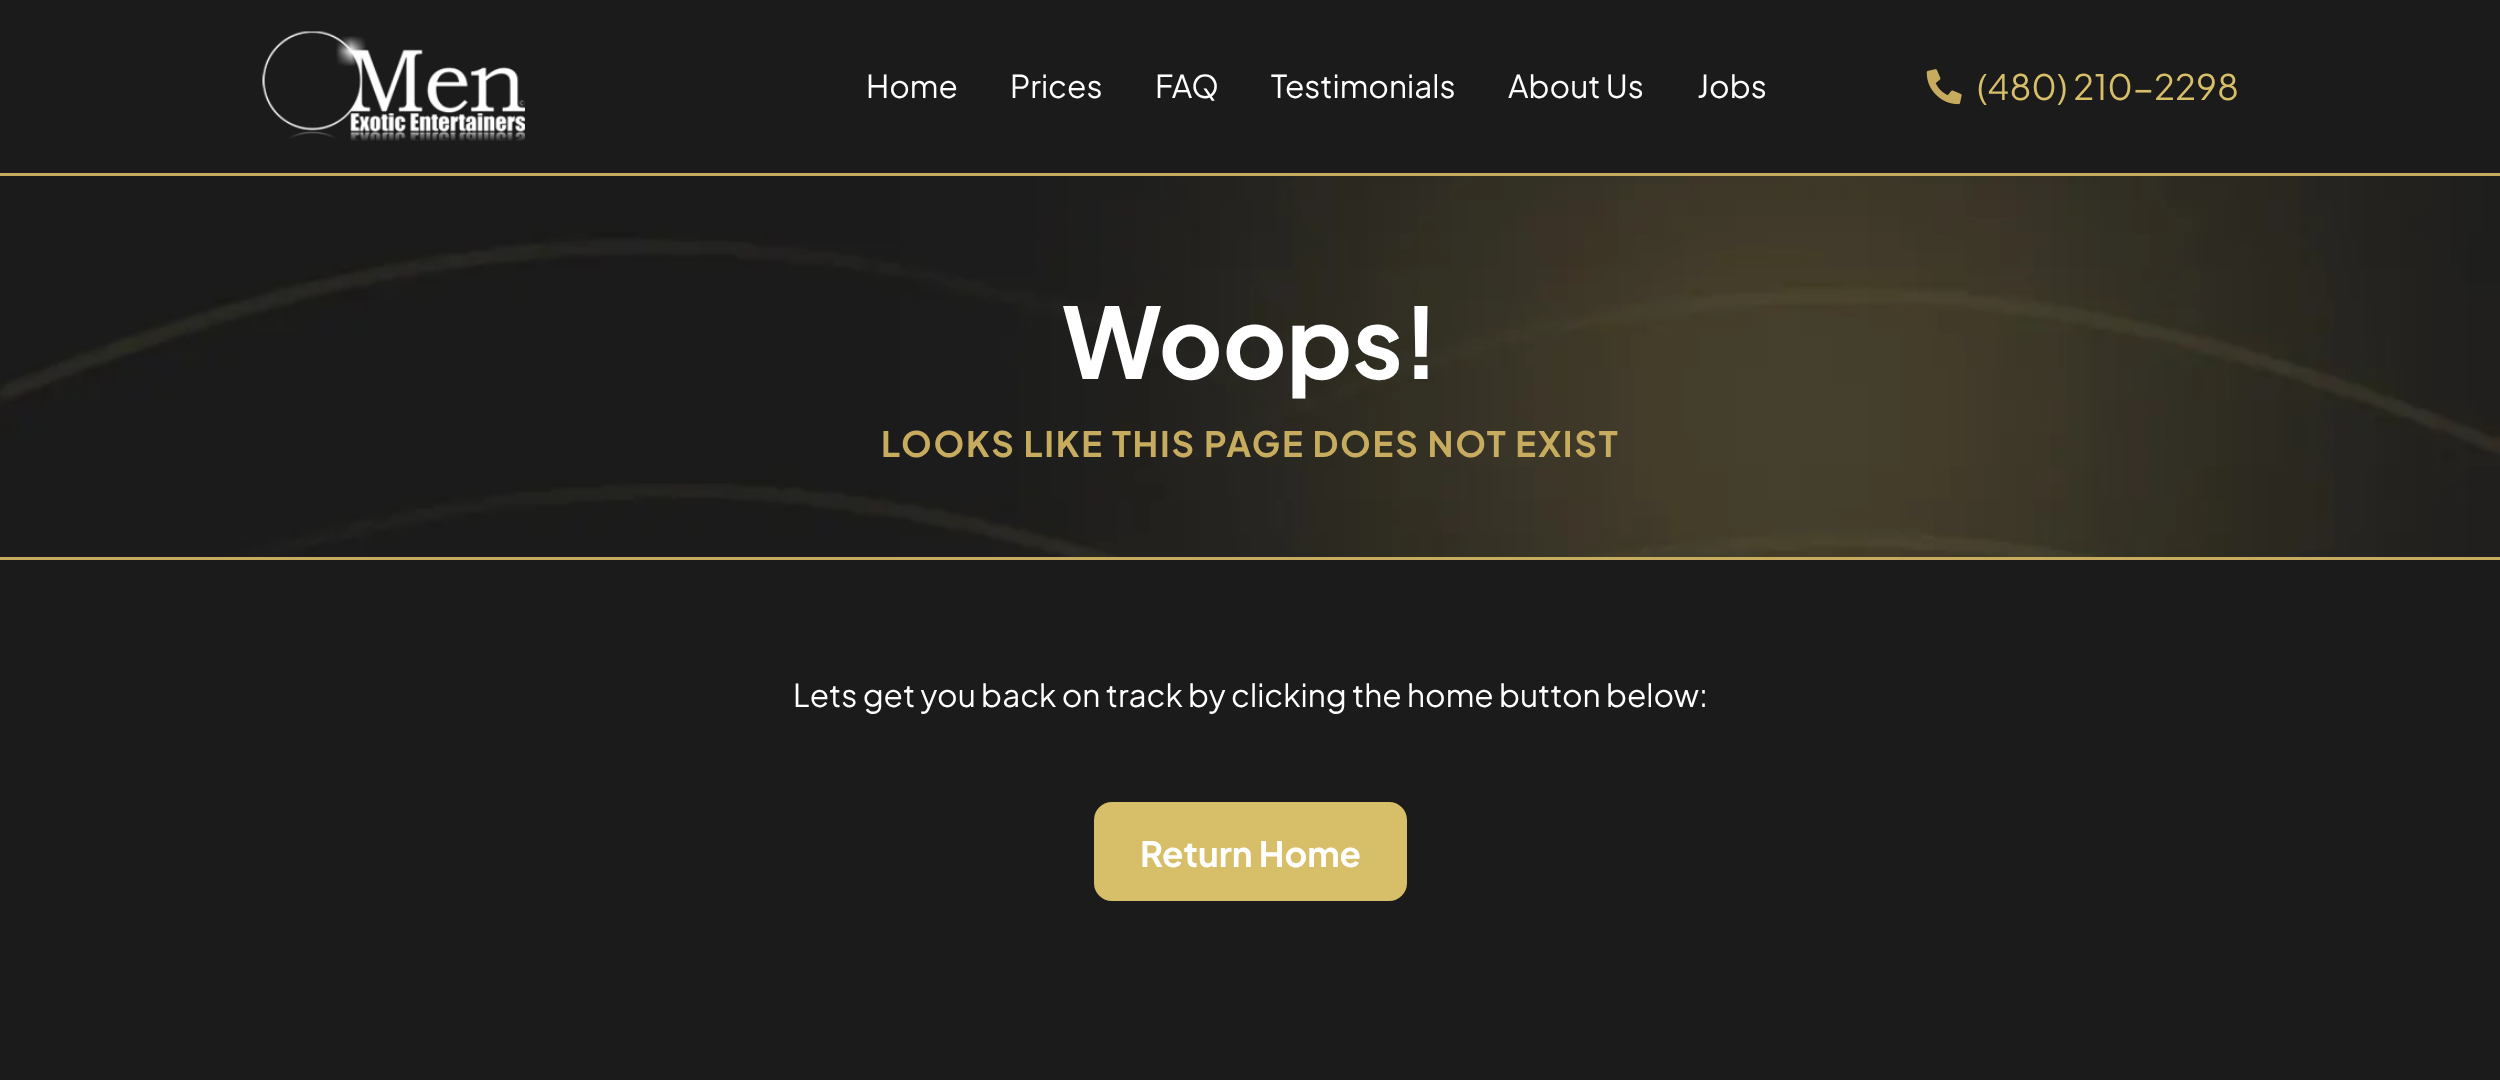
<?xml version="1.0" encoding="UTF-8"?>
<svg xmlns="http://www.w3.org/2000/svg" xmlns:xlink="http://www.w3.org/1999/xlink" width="2500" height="1080">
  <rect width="100%" height="100%" fill="#1b1b1b" />
  <image x="262" y="31" width="263" height="110" xlink:href="image1.png" />
  <image x="1926" y="69" width="36" height="36" xlink:href="image2.png" />
  <rect y="173" width="2500" height="3" fill="#c7ac5f" />
  <rect y="557" width="2500" height="3" fill="#c7ac5f" />
  <image x="0" y="176" width="2500" height="381" xlink:href="image3.png" />
  <rect x="1095" y="803" width="311" height="97" rx="17" fill="#d7be69" stroke="#d7be69" stroke-width="2" />
  <text x="866" y="98" style="font-family: Plus Jakarta Sans; font-size: 31.5px; fill: #ffffff">Home</text>
  <text x="1010" y="98" style="font-family: Plus Jakarta Sans; font-size: 31.5px; fill: #ffffff">Prices</text>
  <text x="1155" y="98" style="font-family: Plus Jakarta Sans; font-size: 31.5px; fill: #ffffff">FAQ</text>
  <text x="1271" y="98" style="font-family: Plus Jakarta Sans; font-size: 31.5px; fill: #ffffff">Testimonials</text>
  <text x="1508" y="98" style="font-family: Plus Jakarta Sans; font-size: 31.5px; fill: #ffffff">About Us</text>
  <text x="1697" y="98" style="font-family: Plus Jakarta Sans; font-size: 31.5px; fill: #ffffff">Jobs</text>
  <text x="1977" y="100" style="font-family: Plus Jakarta Sans; font-size: 35px; fill: #d7be69">(480) 210-2298</text>
  <text x="1062" y="379" style="font-family: Plus Jakarta Sans; font-size: 98px; font-weight: bold; fill: #ffffff">Woops!</text>
  <text x="881" y="457" style="font-family: Plus Jakarta Sans; font-size: 35px; font-weight: bold; letter-spacing: 1.75px; fill: #c7ac5f">LOOKS LIKE THIS PAGE DOES NOT EXIST</text>
  <text x="793" y="707" style="font-family: Plus Jakarta Sans; font-size: 31.5px; fill: #ffffff">Lets get you back on track by clicking the home button below:</text>
  <text x="1140" y="867" style="font-family: Plus Jakarta Sans; font-size: 35px; font-weight: bold; fill: #ffffff">Return Home</text>
</svg>
